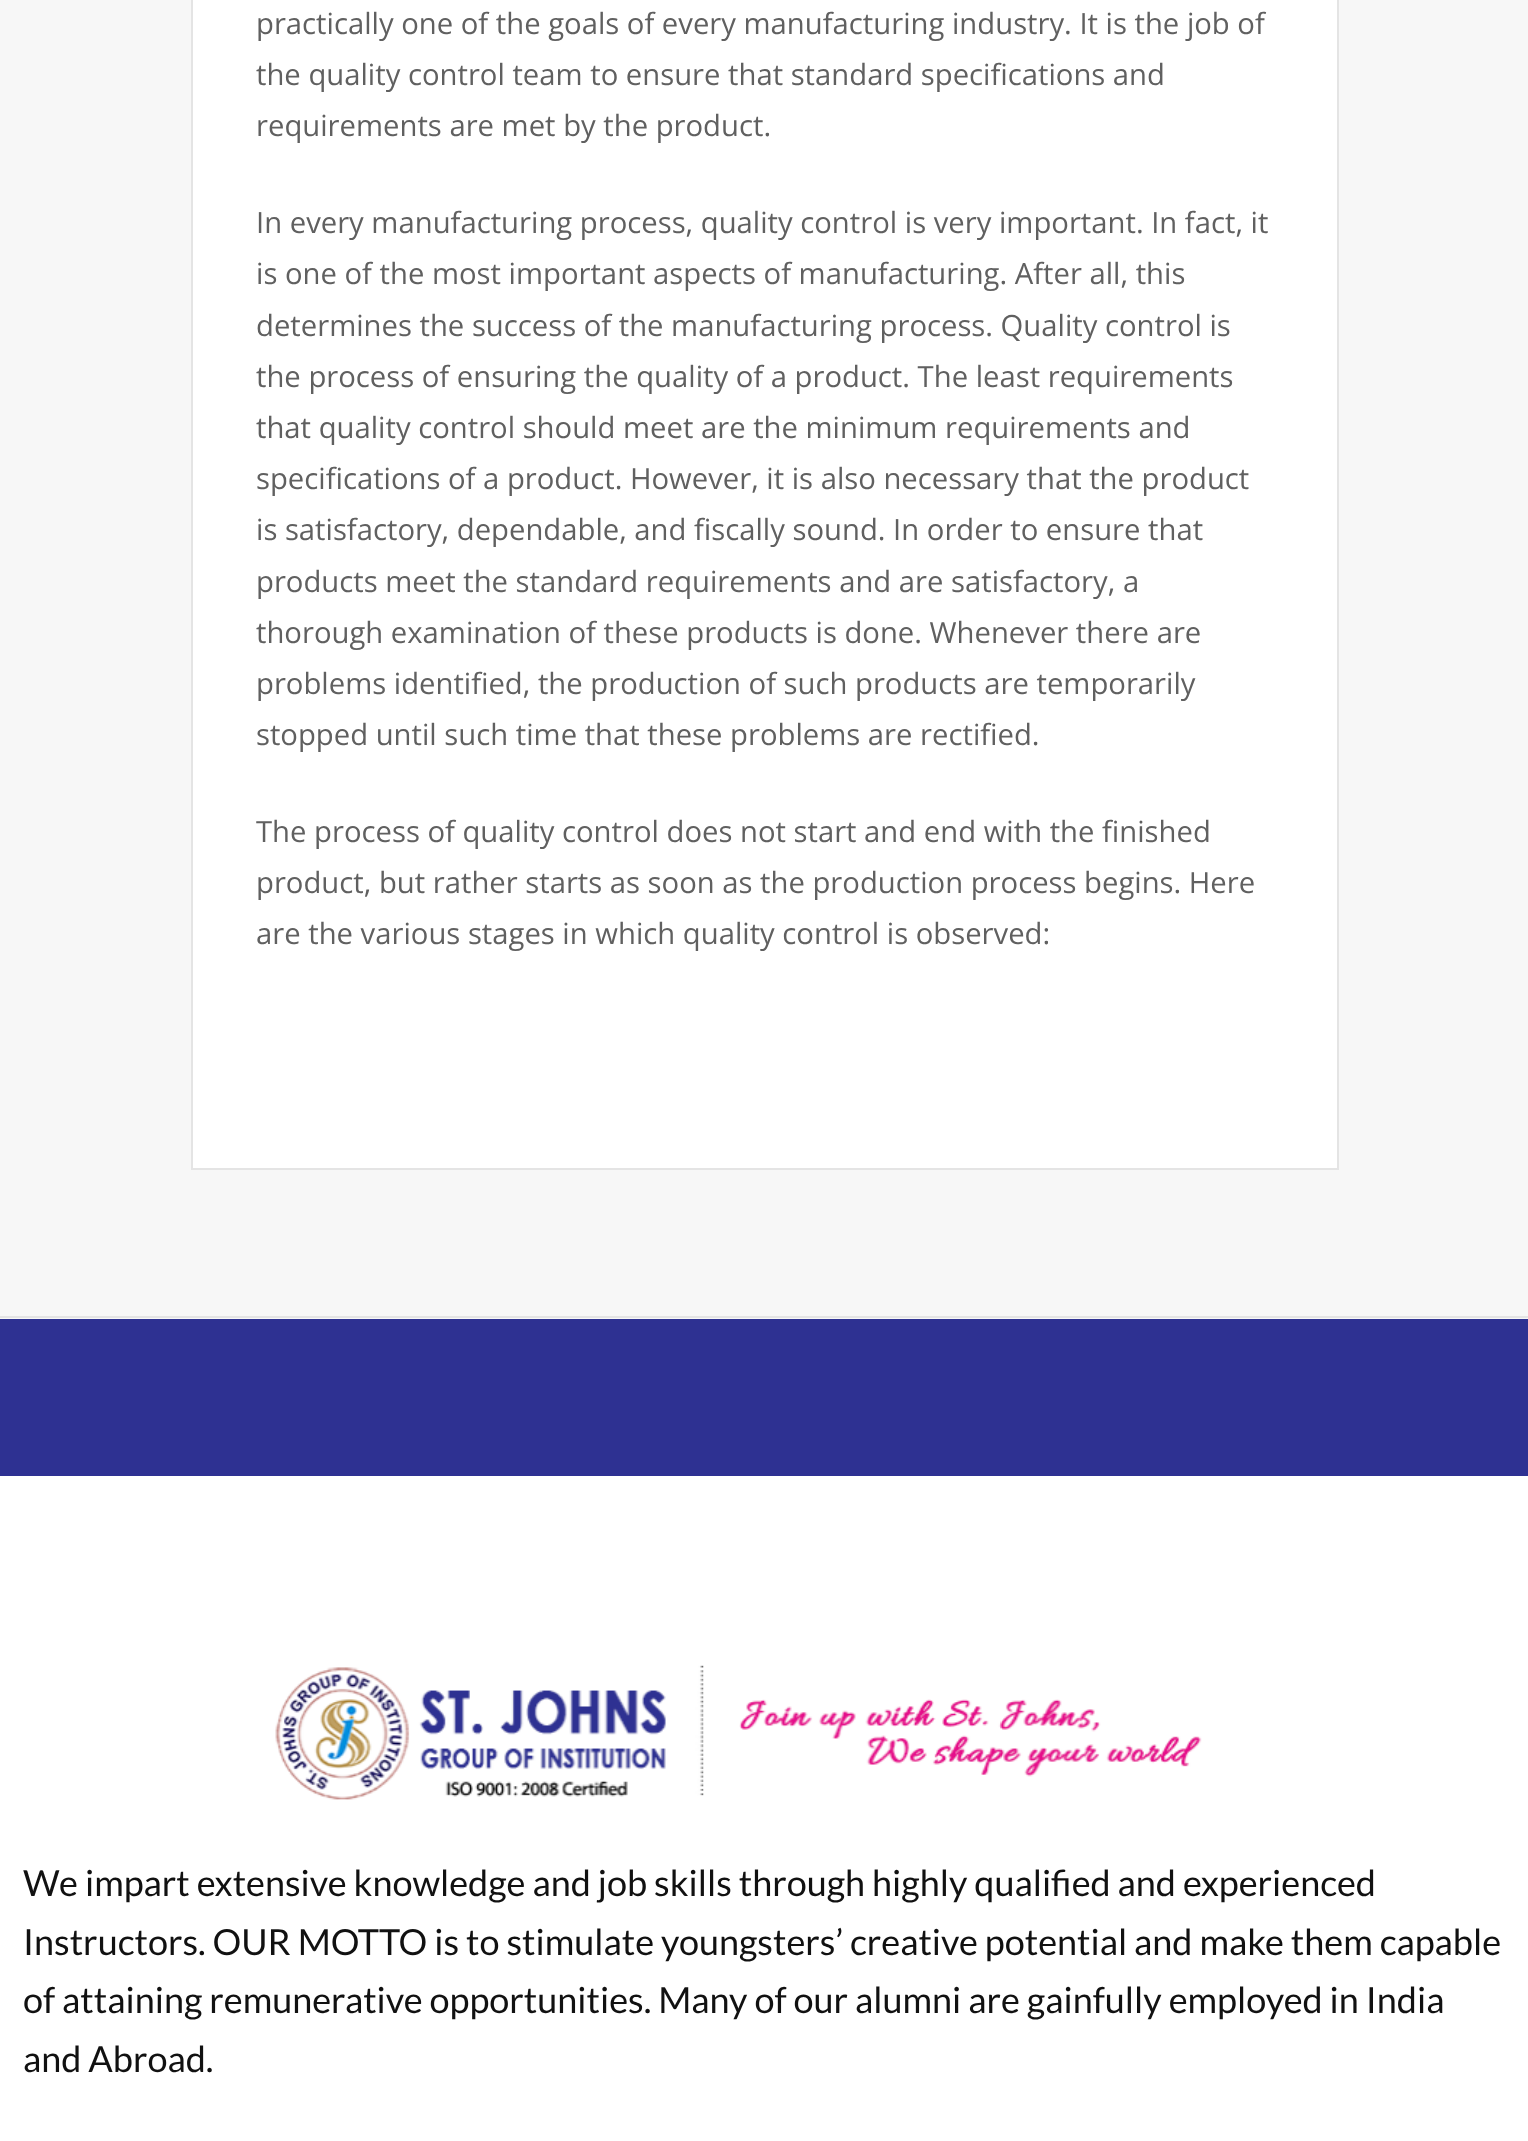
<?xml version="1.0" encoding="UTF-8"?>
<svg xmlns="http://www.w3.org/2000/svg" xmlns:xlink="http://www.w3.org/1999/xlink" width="1528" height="2141">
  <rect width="100%" height="100%" fill="#f7f7f7" />
  <rect y="1316" width="1528" height="2" fill="#e4e4e4" />
  <rect x="192" y="-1" width="1146" height="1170" fill="#ffffff" stroke="#e4e4e4" stroke-width="2" />
  <rect y="1319" width="1528" height="157" fill="#2e3192" />
  <rect y="1476" width="1528" height="665" fill="#ffffff" />
  <image x="275" y="1665" width="927" height="135" xlink:href="image1.png" />
  <text x="256" y="34" style="font-family: Open Sans; font-size: 29.25px; fill: #606060">practically one of the goals of every manufacturing industry. It is the job of</text>
  <text x="256" y="85" style="font-family: Open Sans; font-size: 29.25px; fill: #606060">the quality control team to ensure that standard specifications and</text>
  <text x="256" y="136" style="font-family: Open Sans; font-size: 29.25px; fill: #606060">requirements are met by the product.</text>
  <text x="256" y="233" style="font-family: Open Sans; font-size: 29.25px; fill: #606060">In every manufacturing process, quality control is very important. In fact, it</text>
  <text x="256" y="284" style="font-family: Open Sans; font-size: 29.25px; fill: #606060">is one of the most important aspects of manufacturing. After all, this</text>
  <text x="256" y="336" style="font-family: Open Sans; font-size: 29.25px; fill: #606060">determines the success of the manufacturing process. Quality control is</text>
  <text x="256" y="387" style="font-family: Open Sans; font-size: 29.25px; fill: #606060">the process of ensuring the quality of a product. The least requirements</text>
  <text x="256" y="438" style="font-family: Open Sans; font-size: 29.25px; fill: #606060">that quality control should meet are the minimum requirements and</text>
  <text x="256" y="489" style="font-family: Open Sans; font-size: 29.25px; fill: #606060">specifications of a product. However, it is also necessary that the product</text>
  <text x="256" y="540" style="font-family: Open Sans; font-size: 29.25px; fill: #606060">is satisfactory, dependable, and fiscally sound. In order to ensure that</text>
  <text x="256" y="592" style="font-family: Open Sans; font-size: 29.25px; fill: #606060">products meet the standard requirements and are satisfactory, a</text>
  <text x="256" y="643" style="font-family: Open Sans; font-size: 29.25px; fill: #606060">thorough examination of these products is done. Whenever there are</text>
  <text x="256" y="694" style="font-family: Open Sans; font-size: 29.25px; fill: #606060">problems identified, the production of such products are temporarily</text>
  <text x="256" y="745" style="font-family: Open Sans; font-size: 29.25px; fill: #606060">stopped until such time that these problems are rectified.</text>
  <text x="256" y="842" style="font-family: Open Sans; font-size: 29.25px; fill: #606060">The process of quality control does not start and end with the finished</text>
  <text x="256" y="893" style="font-family: Open Sans; font-size: 29.25px; fill: #606060">product, but rather starts as soon as the production process begins. Here</text>
  <text x="256" y="944" style="font-family: Open Sans; font-size: 29.25px; fill: #606060">are the various stages in which quality control is observed:</text>
  <text x="23" y="1896" style="font-family: Lato; font-size: 36px; fill: #111111">We impart extensive knowledge and job skills through highly qualified and experienced</text>
  <text x="23" y="1955" style="font-family: Lato; font-size: 36px; fill: #111111">Instructors. OUR MOTTO is to stimulate youngsters’ creative potential and make them capable</text>
  <text x="23" y="2013" style="font-family: Lato; font-size: 36px; fill: #111111">of attaining remunerative opportunities. Many of our alumni are gainfully employed in India</text>
  <text x="23" y="2072" style="font-family: Lato; font-size: 36px; fill: #111111">and Abroad.</text>
</svg>
